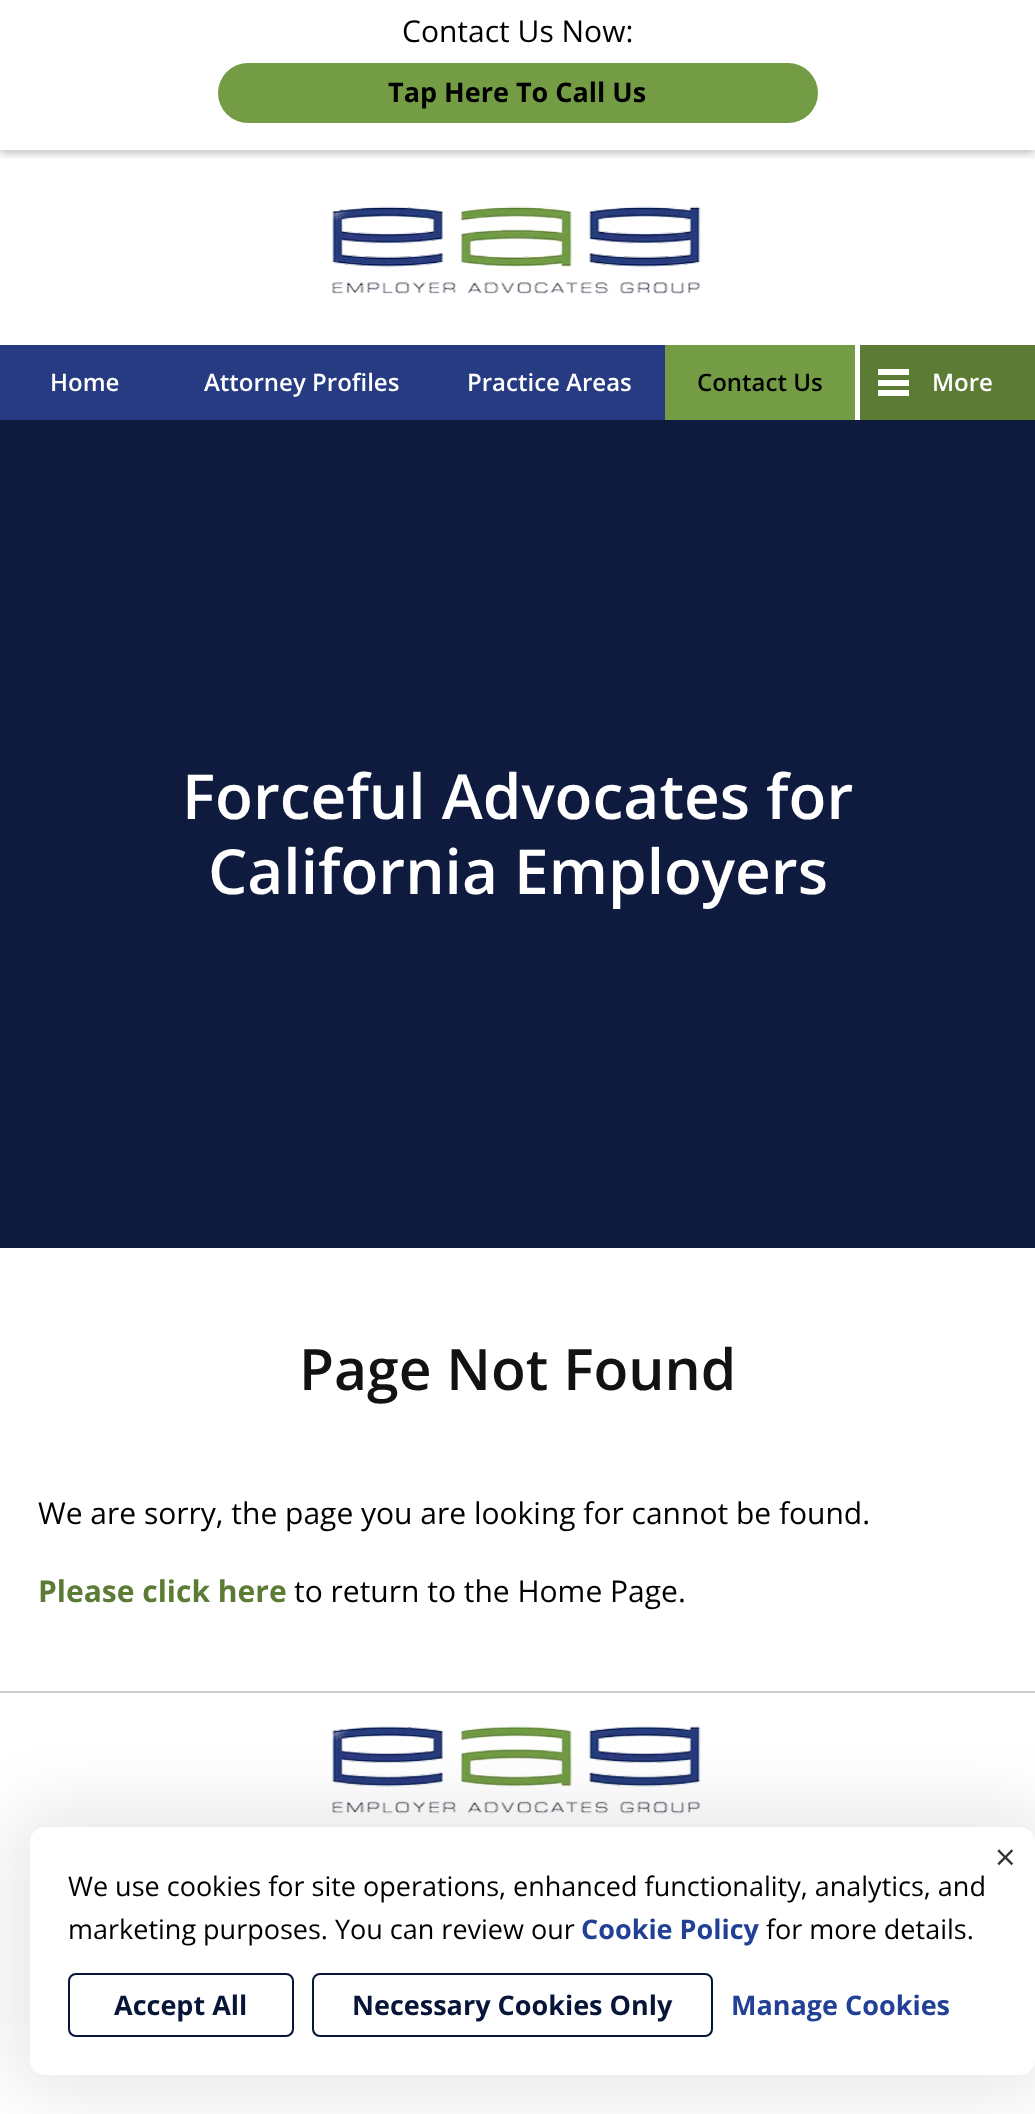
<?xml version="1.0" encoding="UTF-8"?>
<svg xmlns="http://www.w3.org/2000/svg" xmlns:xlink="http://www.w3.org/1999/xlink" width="1035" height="2114">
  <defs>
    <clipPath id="clip1"><rect x="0" y="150" width="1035" height="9" /></clipPath>
  </defs>
  <rect width="100%" height="100%" fill="#ffffff" />
  <g clip-path="url(#clip1)">
    <rect y="3" width="1035" height="150" fill="#000000" fill-opacity="0.26" filter="blur(4px)" />
  </g>
  <rect x="218" y="63" width="600" height="60" rx="30" fill="#739c45" />
  <image x="332" y="206" width="369" height="88" xlink:href="image1.png" />
  <rect y="345" width="665" height="75" fill="#263b81" />
  <rect x="665" y="345" width="190" height="75" fill="#739c45" />
  <rect x="860" y="345" width="175" height="75" fill="#5c7c36" />
  <rect x="878" y="390" width="31" height="6" fill="#ffffff" />
  <rect x="878" y="380" width="31" height="6" fill="#ffffff" />
  <rect x="878" y="369" width="31" height="6" fill="#ffffff" />
  <rect y="420" width="1035" height="828" fill="#0f1a3f" />
  <rect y="1691" width="1035" height="2" fill="#cecfcf" />
  <image x="332" y="1726" width="369" height="88" xlink:href="image2.png" />
  <rect x="15" y="1812" width="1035" height="278" rx="30" fill="#000000" fill-opacity="0.1" filter="blur(37.5px)" />
  <rect x="30" y="1827" width="1005" height="248" rx="15" fill="#ffffff" />
  <rect x="69" y="1974" width="224" height="62" rx="7" fill="none" stroke="#071538" stroke-width="2" />
  <rect x="313" y="1974" width="399" height="62" rx="7" fill="none" stroke="#071538" stroke-width="2" />
  <text x="402" y="42" style="font-family: Open Sans; font-size: 30px; fill: #000000">Contact Us Now:</text>
  <text x="388" y="102" style="font-family: Open Sans; font-size: 27px; font-weight: bold; fill: #000000">Tap Here To Call Us</text>
  <text x="50" y="391" style="font-family: Open Sans; font-size: 24px; font-weight: 600; fill: #ffffff">Home</text>
  <text x="204" y="391" style="font-family: Open Sans; font-size: 24px; font-weight: 600; fill: #ffffff">Attorney Profiles</text>
  <text x="467" y="391" style="font-family: Open Sans; font-size: 24px; font-weight: 600; fill: #ffffff">Practice Areas</text>
  <text x="697" y="391" style="font-family: Open Sans; font-size: 24px; font-weight: 600; fill: #000000">Contact Us</text>
  <text x="932" y="391" style="font-family: Open Sans; font-size: 24px; font-weight: 600; fill: #ffffff">More</text>
  <text x="182" y="819" style="font-family: Open Sans; font-size: 62.1px; font-weight: 600; fill: #ffffff">Forceful Advocates for</text>
  <text x="208" y="894" style="font-family: Open Sans; font-size: 62.1px; font-weight: 600; fill: #ffffff">California Employers</text>
  <text x="299" y="1390" style="font-family: Open Sans; font-size: 57px; font-weight: 600; fill: #121212">Page Not Found</text>
  <text x="38" y="1524" style="font-family: Open Sans; font-size: 30px; fill: #000000">We are sorry, the page you are looking for cannot be found.</text>
  <text x="38" y="1602" style="font-family: Open Sans; font-size: 30px; font-weight: bold; fill: #5c7c36">Please click here</text>
  <text x="294" y="1602" style="font-family: Open Sans; font-size: 30px; fill: #000000">to return to the Home Page.</text>
  <text x="995" y="1870" style="font-family: Open Sans; font-size: 36px; fill: #333333">×</text>
  <text x="68" y="1896" style="font-family: Open Sans; font-size: 27px; fill: #000000">We use cookies for site operations, enhanced functionality, analytics, and</text>
  <text x="68" y="1939" style="font-family: Open Sans; font-size: 27px; fill: #000000">marketing purposes. You can review our</text>
  <text x="581" y="1939" style="font-family: Open Sans; font-size: 27px; font-weight: bold; fill: #224095">Cookie Policy</text>
  <text x="766" y="1939" style="font-family: Open Sans; font-size: 27px; fill: #000000">for more details.</text>
  <text x="114" y="2015" style="font-family: Open Sans; font-size: 27px; font-weight: bold; fill: #071538">Accept All</text>
  <text x="352" y="2015" style="font-family: Open Sans; font-size: 27px; font-weight: bold; fill: #071538">Necessary Cookies Only</text>
  <text x="731" y="2015" style="font-family: Open Sans; font-size: 27px; font-weight: bold; fill: #224095">Manage Cookies</text>
</svg>
